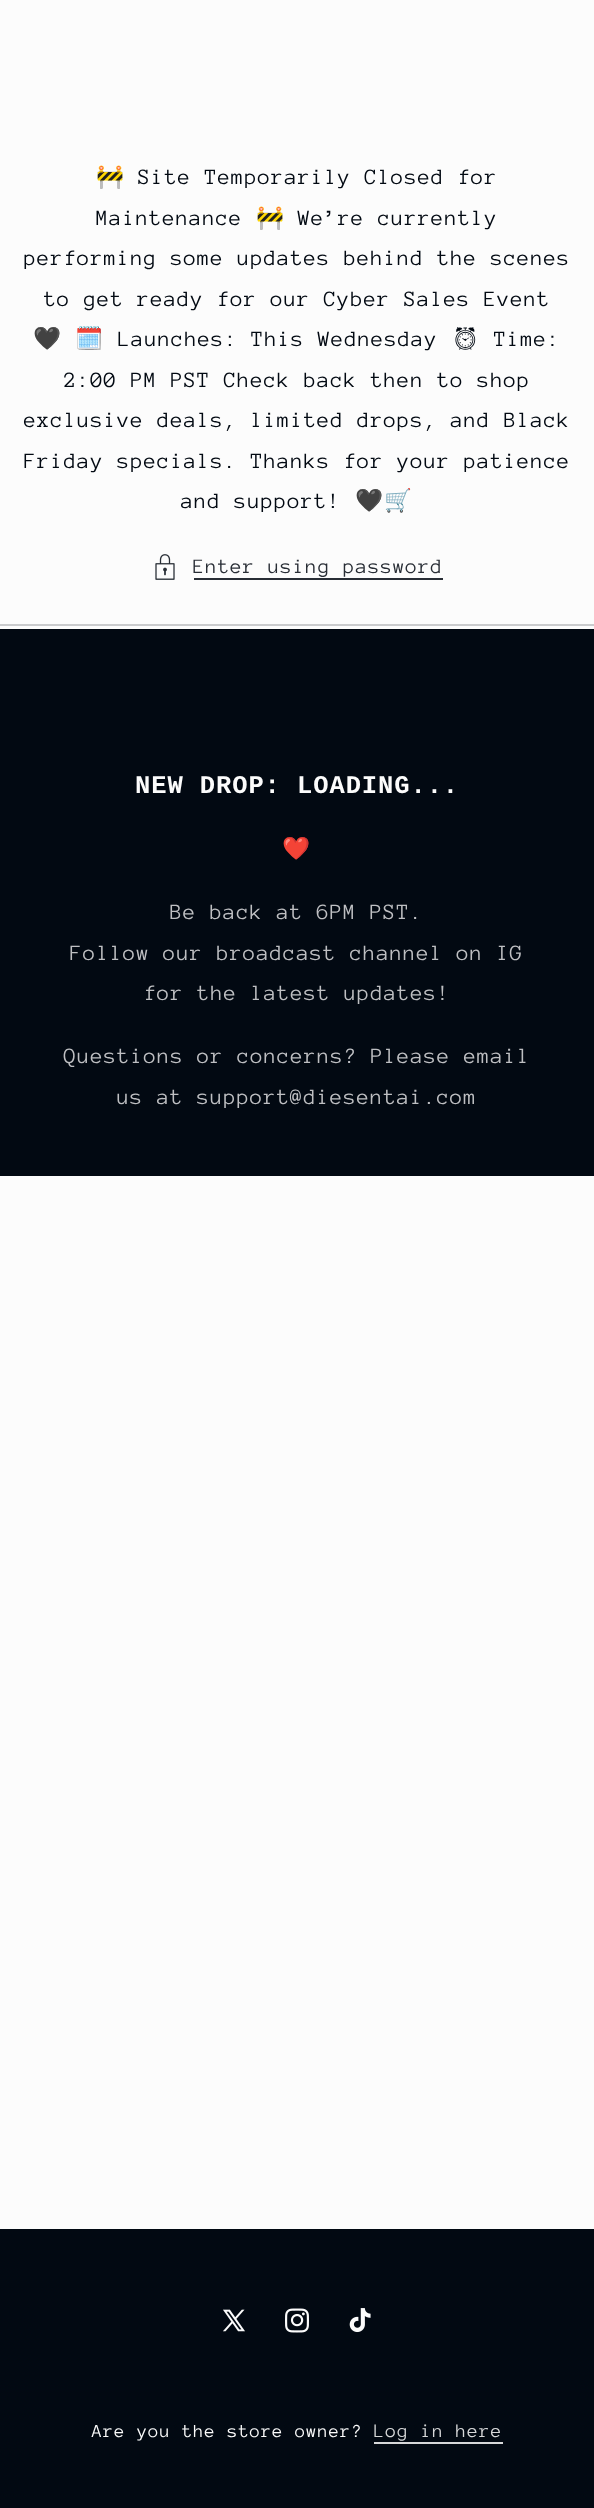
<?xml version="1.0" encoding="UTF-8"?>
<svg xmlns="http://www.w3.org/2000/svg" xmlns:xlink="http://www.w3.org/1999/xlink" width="594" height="2508">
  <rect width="100%" height="100%" fill="#fcfcfc" />
  <image x="155" y="554" width="20" height="26" xlink:href="image1.png" />
  <rect x="194" y="578" width="249" height="2" fill="#282d35" />
  <rect y="624" width="594" height="2" fill="#cacbcd" />
  <rect y="629" width="594" height="547" fill="#020912" />
  <rect y="2229" width="594" height="279" fill="#020912" />
  <image x="223" y="2309" width="22" height="23" xlink:href="image2.png" />
  <image x="285" y="2308" width="24" height="25" xlink:href="image3.png" />
  <image x="349" y="2308" width="22" height="25" xlink:href="image4.png" />
  <rect x="374" y="2442" width="129" height="2" fill="#d7d8d9" />
  <text x="96" y="184" style="font-family: Noto Color Emoji; font-size: 22.5px; letter-spacing: 1.05px; fill: #020912">🚧</text>
  <text x="138" y="184" style="font-family: Anonymous Pro; font-size: 22.5px; letter-spacing: 1.05px; fill: #020912">Site Temporarily Closed for</text>
  <text x="96" y="225" style="font-family: Anonymous Pro; font-size: 22.5px; letter-spacing: 1.05px; fill: #020912">Maintenance</text>
  <text x="256" y="225" style="font-family: Noto Color Emoji; font-size: 22.5px; letter-spacing: 1.05px; fill: #020912">🚧</text>
  <text x="298" y="225" style="font-family: Anonymous Pro; font-size: 22.5px; letter-spacing: 1.05px; fill: #020912">We’re currently</text>
  <text x="24" y="265" style="font-family: Anonymous Pro; font-size: 22.5px; letter-spacing: 1.05px; fill: #020912">performing some updates behind the scenes</text>
  <text x="44" y="306" style="font-family: Anonymous Pro; font-size: 22.5px; letter-spacing: 1.05px; fill: #020912">to get ready for our Cyber Sales Event</text>
  <text x="33" y="346" style="font-family: Noto Color Emoji; font-size: 22.5px; letter-spacing: 1.05px; fill: #020912">🖤</text>
  <text x="75" y="346" style="font-family: Noto Color Emoji; font-size: 22.5px; letter-spacing: 1.05px; fill: #020912">🗓</text>
  <text x="118" y="346" style="font-family: Anonymous Pro; font-size: 22.5px; letter-spacing: 1.05px; fill: #020912">Launches: This Wednesday</text>
  <text x="451" y="346" style="font-family: Noto Emoji; font-size: 22.5px; letter-spacing: 1.05px; fill: #020912">⏰</text>
  <text x="494" y="346" style="font-family: Anonymous Pro; font-size: 22.5px; letter-spacing: 1.05px; fill: #020912">Time:</text>
  <text x="64" y="387" style="font-family: Anonymous Pro; font-size: 22.5px; letter-spacing: 1.05px; fill: #020912">2:00 PM PST Check back then to shop</text>
  <text x="24" y="427" style="font-family: Anonymous Pro; font-size: 22.5px; letter-spacing: 1.05px; fill: #020912">exclusive deals, limited drops, and Black</text>
  <text x="24" y="468" style="font-family: Anonymous Pro; font-size: 22.5px; letter-spacing: 1.05px; fill: #020912">Friday specials. Thanks for your patience</text>
  <text x="181" y="508" style="font-family: Anonymous Pro; font-size: 22.5px; letter-spacing: 1.05px; fill: #020912">and support!</text>
  <text x="355" y="508" style="font-family: Noto Color Emoji; font-size: 22.5px; letter-spacing: 1.05px; fill: #020912">🖤🛒</text>
  <text x="193" y="573" style="font-family: Anonymous Pro; font-size: 21px; letter-spacing: 1.05px; fill: #282d35">Enter using password</text>
  <text x="135" y="793" style="font-family: Liberation Mono; font-size: 25.5px; font-weight: bold; letter-spacing: 0.9px; fill: #fcfcfc">NEW DROP: LOADING...</text>
  <text x="282" y="856" style="font-family: Noto Color Emoji; font-size: 22.5px; letter-spacing: 1.05px; fill: #bebfc2">❤️</text>
  <text x="170" y="919" style="font-family: Anonymous Pro; font-size: 22.5px; letter-spacing: 1.05px; fill: #bebfc2">Be back at 6PM PST.</text>
  <text x="70" y="960" style="font-family: Anonymous Pro; font-size: 22.5px; letter-spacing: 1.05px; fill: #bebfc2">Follow our broadcast channel on IG</text>
  <text x="144" y="1000" style="font-family: Anonymous Pro; font-size: 22.5px; letter-spacing: 1.05px; fill: #bebfc2">for the latest updates!</text>
  <text x="64" y="1063" style="font-family: Anonymous Pro; font-size: 22.5px; letter-spacing: 1.05px; fill: #bebfc2">Questions or concerns? Please email</text>
  <text x="117" y="1104" style="font-family: Anonymous Pro; font-size: 22.5px; letter-spacing: 1.05px; fill: #bebfc2">us at support@diesentai.com</text>
  <text x="92" y="2437" style="font-family: Anonymous Pro; font-size: 18.75px; letter-spacing: 1.05px; fill: #fcfcfc">Are you the store owner?</text>
  <text x="374" y="2437" style="font-family: Anonymous Pro; font-size: 19.5px; letter-spacing: 1.05px; fill: #d7d8d9">Log in here</text>
</svg>
